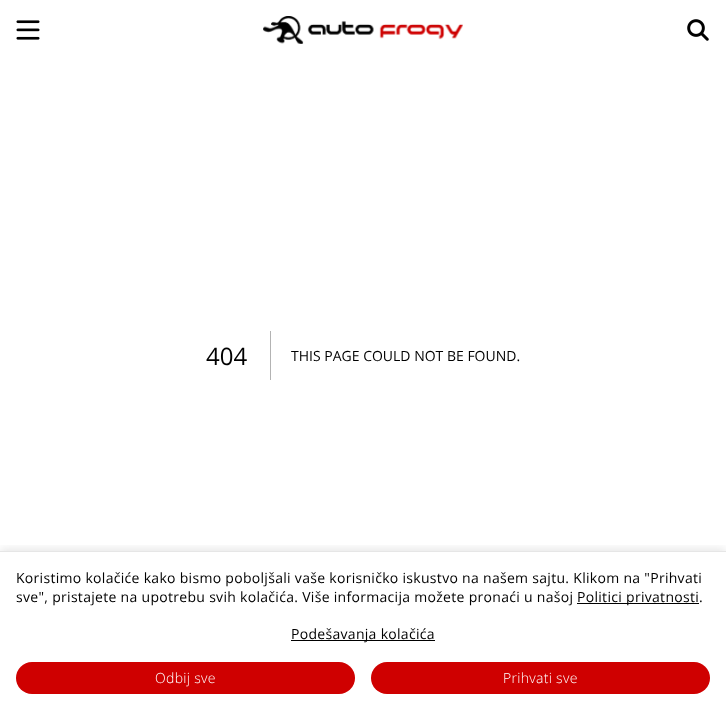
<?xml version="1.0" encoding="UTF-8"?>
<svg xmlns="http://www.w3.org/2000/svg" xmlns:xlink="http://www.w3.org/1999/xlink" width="726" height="710">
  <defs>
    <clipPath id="clip1"><rect x="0" y="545" width="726" height="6" /></clipPath>
  </defs>
  <rect width="100%" height="100%" fill="#ffffff" />
  <image x="16" y="20" width="24" height="20" xlink:href="image1.png" />
  <image x="263" y="16" width="200" height="28" xlink:href="image2.png" />
  <image x="687" y="19" width="22" height="22" xlink:href="image3.png" />
  <rect x="270" y="331" width="1" height="49" fill="#b3b3b3" />
  <g clip-path="url(#clip1)">
    <rect y="549" width="726" height="159" fill="#000000" fill-opacity="0.1" filter="blur(5px)" />
  </g>
  <rect y="551" width="726" height="1" fill="#e6e6e6" />
  <rect x="577" y="603" width="122" height="1" fill="#000000" />
  <rect x="291" y="640" width="144" height="1" fill="#000000" />
  <rect x="16" y="662" width="339" height="32" rx="16" fill="#cf0000" />
  <rect x="371" y="662" width="339" height="32" rx="16" fill="#cf0000" />
  <text x="206" y="365" style="font-family: Open Sans; font-size: 24px; fill: #000000">404</text>
  <text x="291" y="361" style="font-family: Open Sans; font-size: 14px; fill: #000000">THIS PAGE COULD NOT BE FOUND.</text>
  <text x="16" y="583" style="font-family: Open Sans; font-size: 14px; letter-spacing: 0.3px; fill: #000000">Koristimo kolačiće kako bismo poboljšali vaše korisničko iskustvo na našem sajtu. Klikom na "Prihvati</text>
  <text x="16" y="602" style="font-family: Open Sans; font-size: 14px; letter-spacing: 0.3px; fill: #000000">sve", pristajete na upotrebu svih kolačića. Više informacija možete pronaći u našoj</text>
  <text x="577" y="602" style="font-family: Open Sans; font-size: 14px; letter-spacing: 0.3px; fill: #000000">Politici privatnosti.</text>
  <text x="291" y="639" style="font-family: Open Sans; font-size: 14px; letter-spacing: 0.3px; fill: #000000">Podešavanja kolačića</text>
  <text x="155" y="683" style="font-family: Open Sans; font-size: 14px; font-weight: 300; letter-spacing: 0.3px; fill: #ffffff">Odbij sve</text>
  <text x="503" y="683" style="font-family: Open Sans; font-size: 14px; font-weight: 300; letter-spacing: 0.3px; fill: #ffffff">Prihvati sve</text>
</svg>
